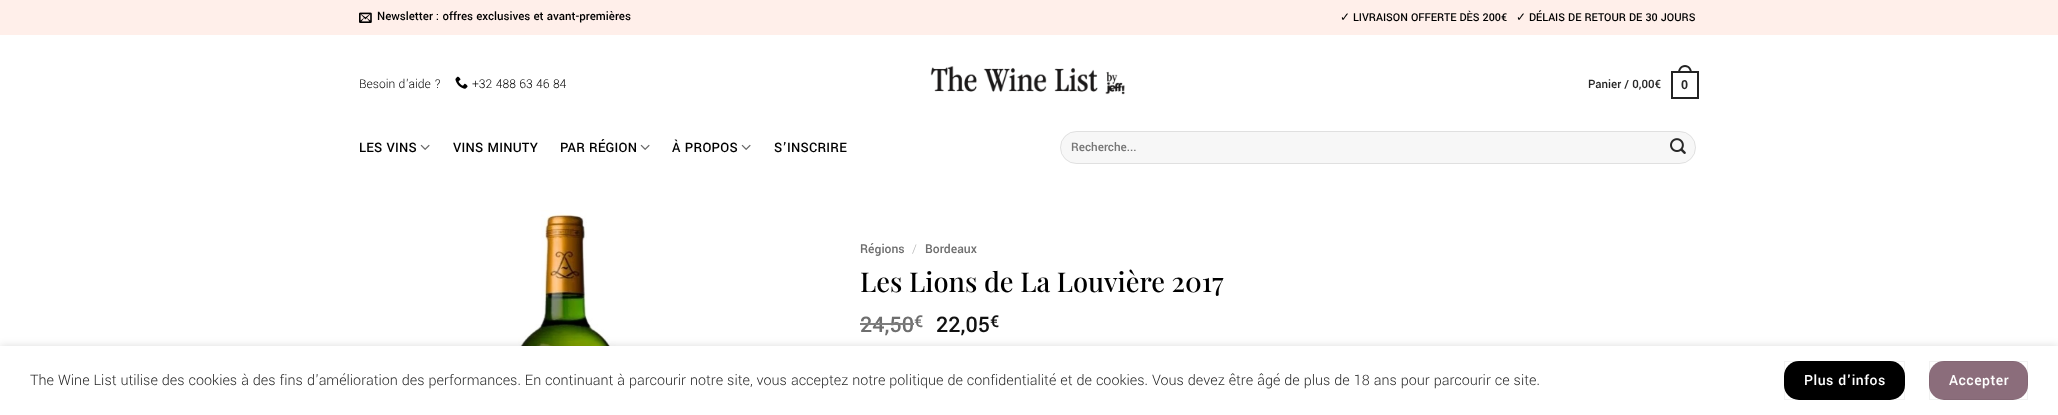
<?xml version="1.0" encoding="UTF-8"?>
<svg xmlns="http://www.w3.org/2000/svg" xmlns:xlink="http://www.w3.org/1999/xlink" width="2058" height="415">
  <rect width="100%" height="100%" fill="#ffffff" />
  <rect width="2058" height="35" fill="#ffefea" />
  <image x="359" y="12" width="13" height="11" xlink:href="image1.png" />
  <image x="455" y="76" width="13" height="13" xlink:href="image2.png" />
  <image x="930" y="66" width="195" height="29" xlink:href="image3.png" />
  <rect x="1672" y="72" width="26" height="26" fill="none" stroke="#232323" stroke-width="2" />
  <path d="M 1685 65 c 4.5 0 7 4 7 8 h -14 c 0 -4 2.5 -8 7 -8 z m 0 2 c 3.5 0 5 3 5 6 h -10 c 0 -3 1.5 -6 5 -6 z" fill="#232323" fill-rule="evenodd" />
  <image x="420" y="144" width="10" height="6" xlink:href="image4.png" />
  <image x="640" y="144" width="10" height="6" xlink:href="image4.png" />
  <image x="741" y="144" width="10" height="6" xlink:href="image4.png" />
  <rect x="1060" y="131" width="636" height="33" rx="16.5" fill="#f7f7f7" />
  <rect x="1060.5" y="131.5" width="635" height="32" rx="16" fill="none" stroke="#000000" stroke-opacity="0.09" />
  <image x="1670" y="138" width="16" height="16" xlink:href="image5.png" />
  <image x="512" y="210" width="109" height="136" xlink:href="image6.png" />
  <rect y="346" width="2058" height="69" fill="#000000" fill-opacity="0.14" filter="blur(4.5px)" />
  <rect y="346" width="2058" height="69" fill="#ffffff" />
  <rect x="1784" y="361" width="121" height="39" rx="15" fill="#000000" />
  <rect x="1784.5" y="361.5" width="120" height="38" fill="none" stroke="#000000" stroke-opacity="0.05" />
  <rect x="1929" y="361" width="99" height="39" rx="15" fill="#8b6d7b" />
  <rect x="1929.5" y="361.5" width="98" height="38" fill="none" stroke="#000000" stroke-opacity="0.05" />
  <text x="377" y="20" style="font-family: Yantramanav; font-size: 12.75px; font-weight: 500; fill: #000000">Newsletter : offres exclusives et avant-premières</text>
  <text x="1340" y="21" style="font-family: DejaVu Sans; font-size: 12px; fill: #000000">✓</text>
  <text x="1353" y="21" style="font-family: Yantramanav; font-size: 12px; font-weight: 500; fill: #000000">LIVRAISON OFFERTE DÈS 200€</text>
  <text x="1516" y="21" style="font-family: DejaVu Sans; font-size: 12px; fill: #000000">✓</text>
  <text x="1529" y="21" style="font-family: Yantramanav; font-size: 12px; font-weight: 500; fill: #000000">DÉLAIS DE RETOUR DE 30 JOURS</text>
  <text x="359" y="88" style="font-family: Yantramanav; font-size: 13.5px; font-weight: 300; fill: #000000">Besoin d'aide ?</text>
  <text x="472" y="88" style="font-family: Yantramanav; font-size: 13.5px; font-weight: 300; fill: #000000">+32 488 63 46 84</text>
  <text x="1588" y="88" style="font-family: Yantramanav; font-size: 12.75px; font-weight: 500; fill: #282828">Panier / 0,00€</text>
  <text x="1681" y="89" style="font-family: Liberation Sans; font-size: 12.75px; font-weight: bold; fill: #282828">0</text>
  <text x="359" y="152" style="font-family: Yantramanav; font-size: 14.5px; font-weight: 500; letter-spacing: 0.25px; fill: #000000">LES VINS</text>
  <text x="453" y="152" style="font-family: Yantramanav; font-size: 14.5px; font-weight: 500; letter-spacing: 0.25px; fill: #000000">VINS MINUTY</text>
  <text x="560" y="152" style="font-family: Yantramanav; font-size: 14.5px; font-weight: 500; letter-spacing: 0.25px; fill: #000000">PAR RÉGION</text>
  <text x="672" y="152" style="font-family: Yantramanav; font-size: 14.5px; font-weight: 500; letter-spacing: 0.25px; fill: #000000">À PROPOS</text>
  <text x="774" y="152" style="font-family: Yantramanav; font-size: 14.5px; font-weight: 500; letter-spacing: 0.25px; fill: #000000">S’INSCRIRE</text>
  <text x="1071" y="151" style="font-family: Yantramanav; font-size: 13px; font-weight: 500; fill: #757575">Recherche...</text>
  <text x="860" y="253" style="font-family: Yantramanav; font-size: 13.5px; font-weight: 500; fill: #6e6e6e">Régions</text>
  <text x="912" y="253" style="font-family: Yantramanav; font-size: 13.5px; font-weight: 300; fill: #b2b2b2">/</text>
  <text x="925" y="253" style="font-family: Yantramanav; font-size: 13.5px; font-weight: 500; fill: #6e6e6e">Bordeaux</text>
  <text x="860" y="292" style="font-family: Playfair Display; font-size: 27.25px; font-weight: 500; fill: #000000">Les Lions de La Louvière 2017</text>
  <text x="860" y="332" style="font-family: Yantramanav; font-size: 24px; font-weight: 500; fill: #6e6e6e">24,50</text>
  <rect x="860" y="323" width="54" height="2" fill="#7e7e7e" />
  <text x="914" y="327" style="font-family: Yantramanav; font-size: 18px; font-weight: 500; fill: #6e6e6e">€</text>
  <text x="936" y="332" style="font-family: Yantramanav; font-size: 24px; font-weight: 500; fill: #111111">22,05</text>
  <text x="990" y="327" style="font-family: Yantramanav; font-size: 18px; font-weight: 500; fill: #111111">€</text>
  <text x="30" y="385" style="font-family: Yantramanav; font-size: 16px; font-weight: 300; fill: #282828">The Wine List utilise des cookies à des fins d'amélioration des performances. En continuant à parcourir notre site, vous acceptez notre politique de confidentialité et de cookies. Vous devez être âgé de plus de 18 ans pour parcourir ce site.</text>
  <text x="1804" y="385" style="font-family: Yantramanav; font-size: 15.5px; font-weight: 500; letter-spacing: 0.5px; fill: #ffffff">Plus d'infos</text>
  <text x="1949" y="385" style="font-family: Yantramanav; font-size: 15.5px; font-weight: 500; letter-spacing: 0.5px; fill: #ffffff">Accepter</text>
</svg>
